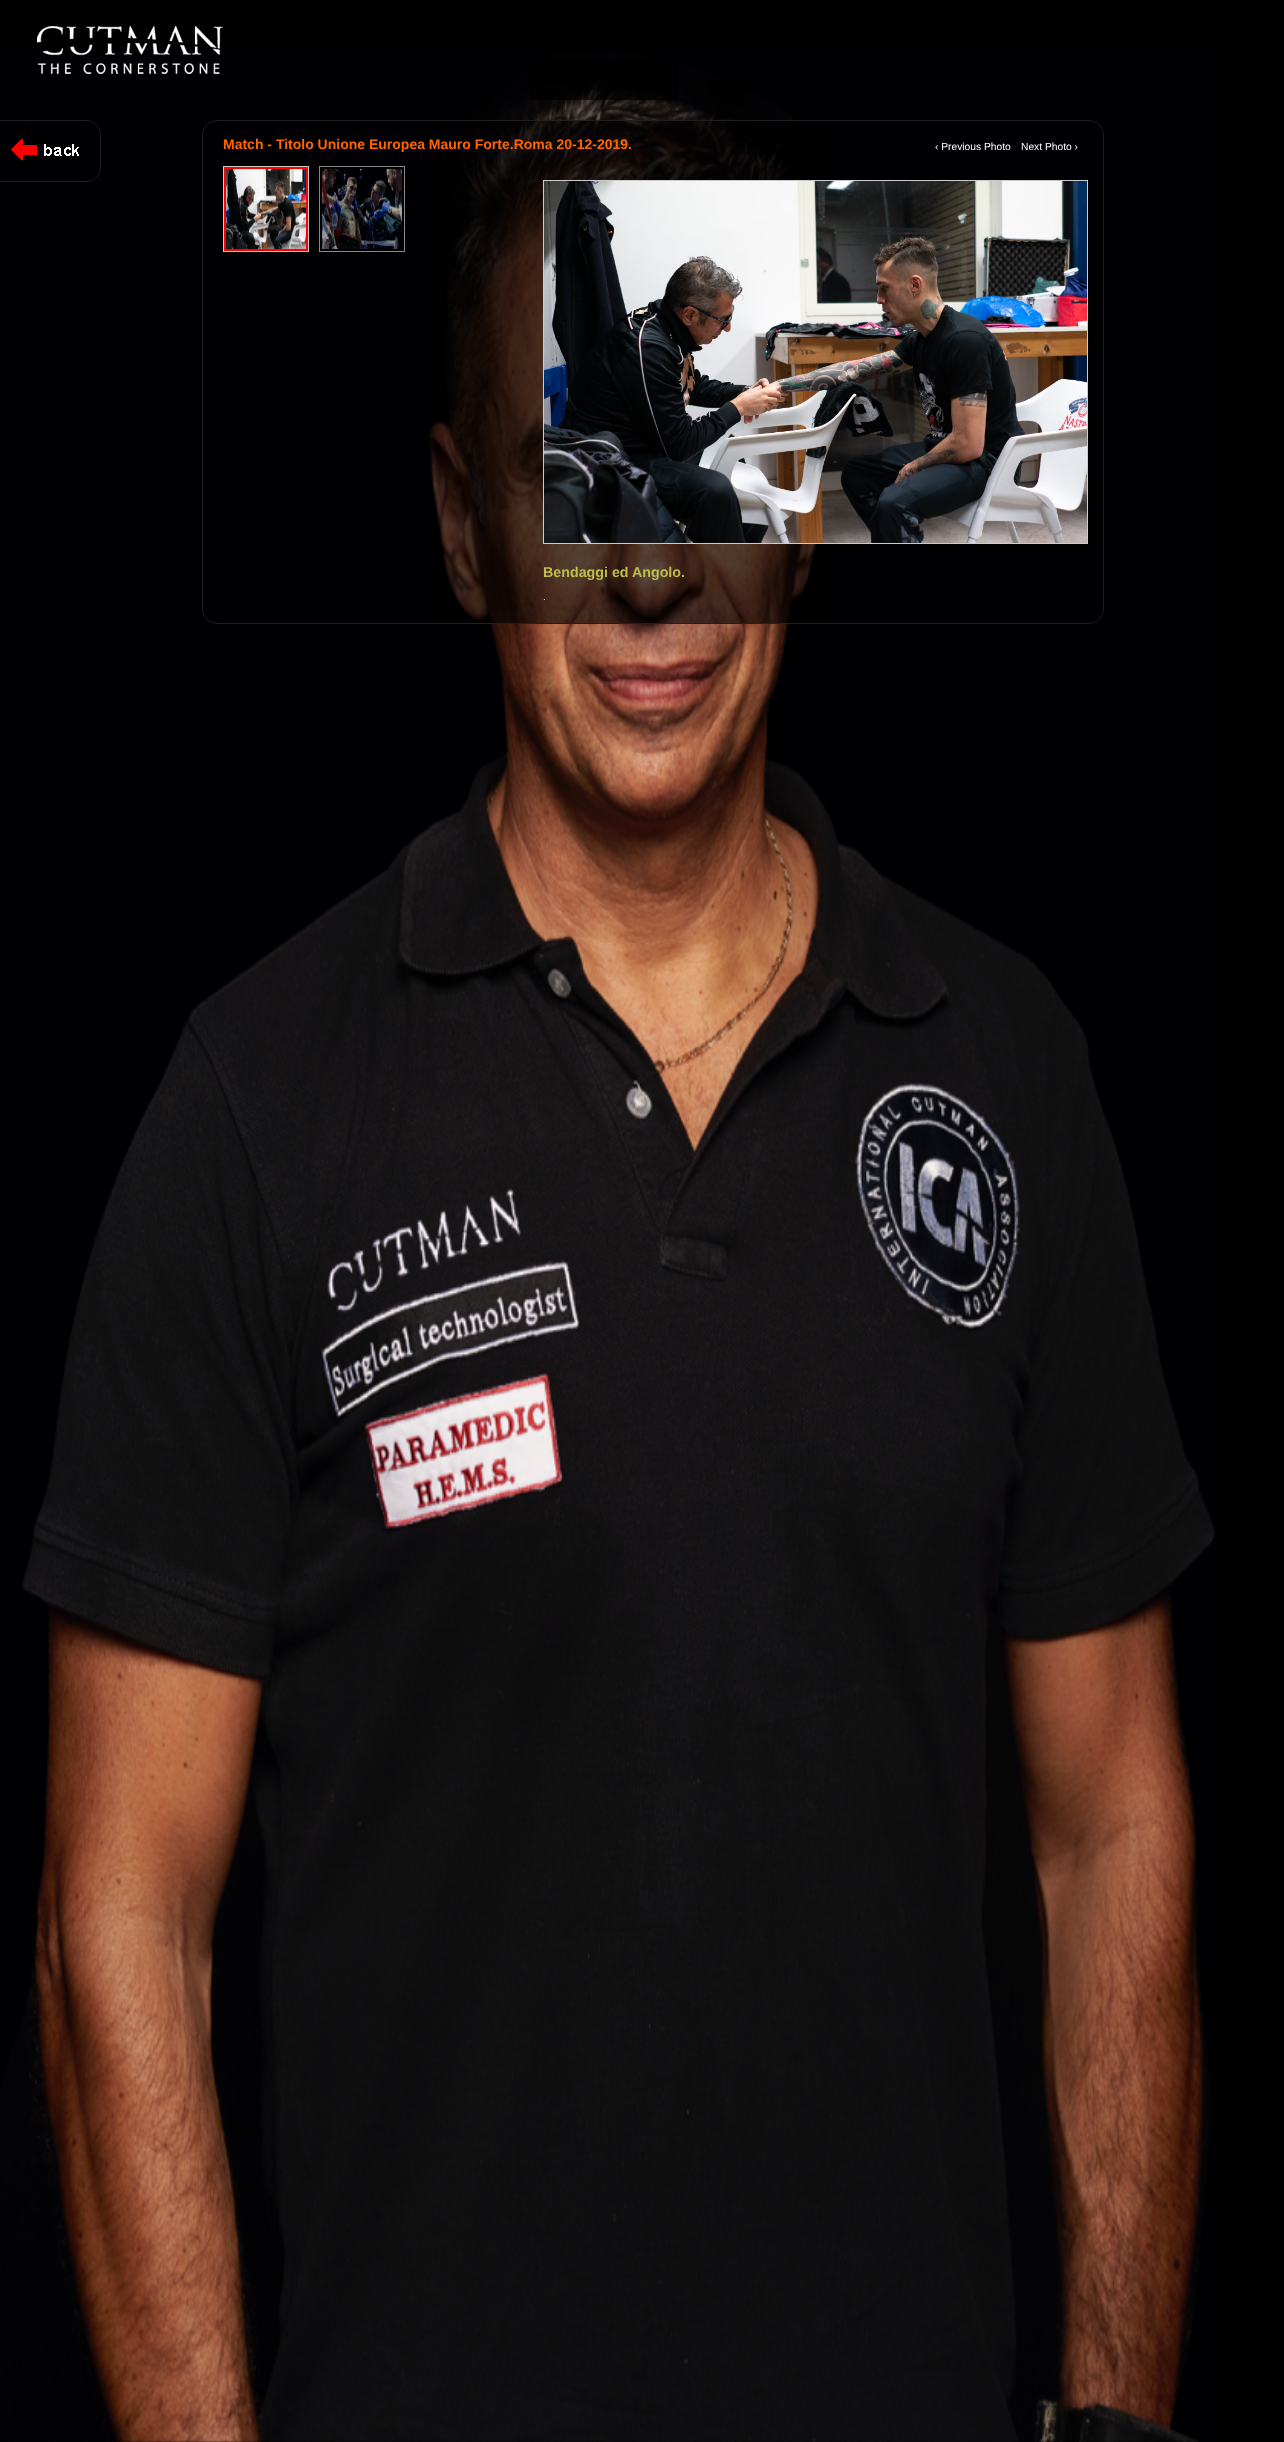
<?xml version="1.0" encoding="UTF-8"?>
<svg xmlns="http://www.w3.org/2000/svg" xmlns:xlink="http://www.w3.org/1999/xlink" width="1284" height="2442">
  <rect width="100%" height="100%" fill="#000000" />
  <image x="0" y="51" width="1216" height="2391" xlink:href="image2.png" />
  <rect x="530" y="61" width="148" height="39" fill="#000000" fill-opacity="0.63" />
  <image x="37" y="26" width="186" height="48" xlink:href="image1.png" />
  <path d="M 0 120 h 86 c 8 0 15 7 15 15 v 32 c 0 8 -7 15 -15 15 h -86 z m 0 1 h 86 c 8 0 14 6 14 14 v 32 c 0 8 -6 14 -14 14 h -86 z" fill="#202020" fill-rule="evenodd" />
  <image x="11" y="139" width="68" height="21" xlink:href="image3.png" />
  <rect x="428" y="121" width="403" height="502" fill="#000000" fill-opacity="0.63" />
  <rect x="202.5" y="120.5" width="901" height="503" rx="14.5" fill="none" stroke="#202020" />
  <rect x="543.5" y="180.5" width="544" height="363" fill="none" stroke="#cccccc" />
  <image x="544" y="181" width="543" height="362" xlink:href="image4.png" />
  <rect x="223.5" y="166.5" width="85" height="85" fill="#ff0000" stroke="#cccccc" />
  <image x="226" y="169" width="80" height="80" xlink:href="image5.png" />
  <rect x="319.5" y="166.5" width="85" height="85" fill="none" stroke="#898989" />
  <image x="322" y="169" width="80" height="80" xlink:href="image6.png" />
  <text x="223" y="149" style="font-family: Liberation Sans; font-size: 14px; font-weight: bold; fill: #ff6600">Match - Titolo Unione Europea Mauro Forte.Roma 20-12-2019.</text>
  <text x="935" y="150" style="font-family: Liberation Sans; font-size: 10.25px; fill: #ffffff">‹ Previous Photo</text>
  <text x="1021" y="150" style="font-family: Liberation Sans; font-size: 10.25px; fill: #ffffff">Next Photo ›</text>
  <text x="543" y="577" style="font-family: Liberation Sans; font-size: 14.25px; font-weight: bold; fill: #bfbe4b">Bendaggi ed Angolo.</text>
  <text x="543" y="600" style="font-family: Liberation Sans; font-size: 10.25px; fill: #ffffff">.</text>
</svg>
